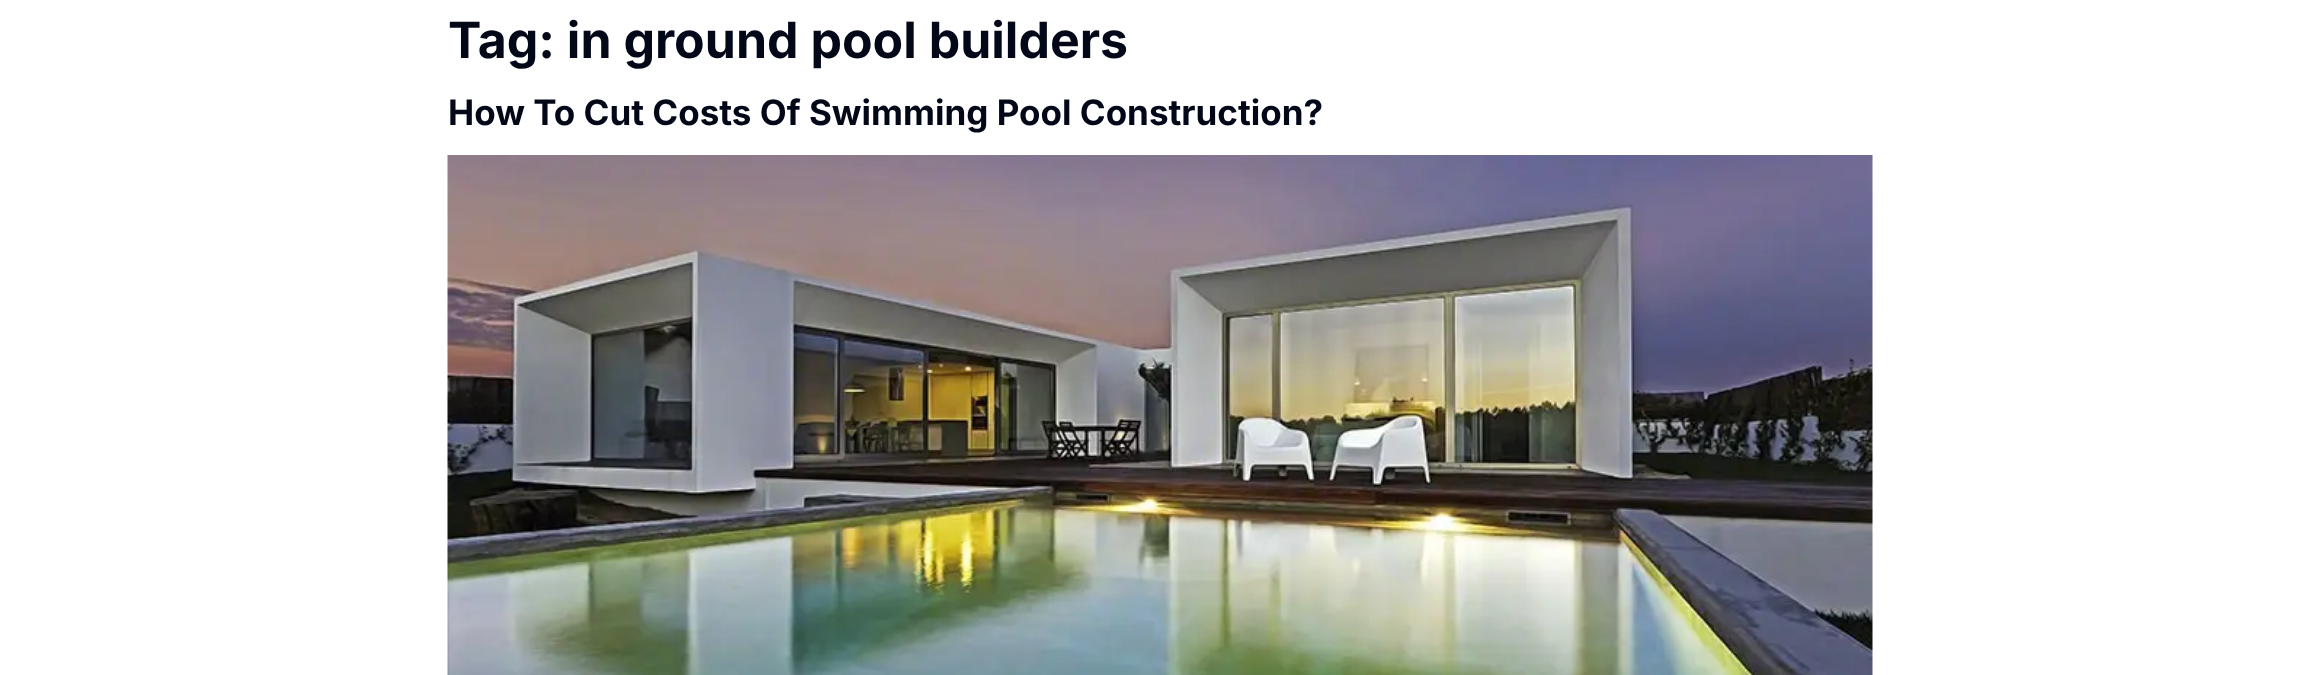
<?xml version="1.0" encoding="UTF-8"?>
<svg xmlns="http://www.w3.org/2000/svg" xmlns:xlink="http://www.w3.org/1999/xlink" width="2320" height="675">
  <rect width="100%" height="100%" fill="#ffffff" />
  <image x="447" y="155" width="1426" height="520" xlink:href="image1.png" />
  <text x="448" y="58" style="font-family: Inter; font-size: 50px; font-weight: bold; fill: #020817">Tag: in ground pool builders</text>
  <text x="448" y="125" style="font-family: Inter; font-size: 35px; font-weight: bold; fill: #020817">How To Cut Costs Of Swimming Pool Construction?</text>
</svg>
